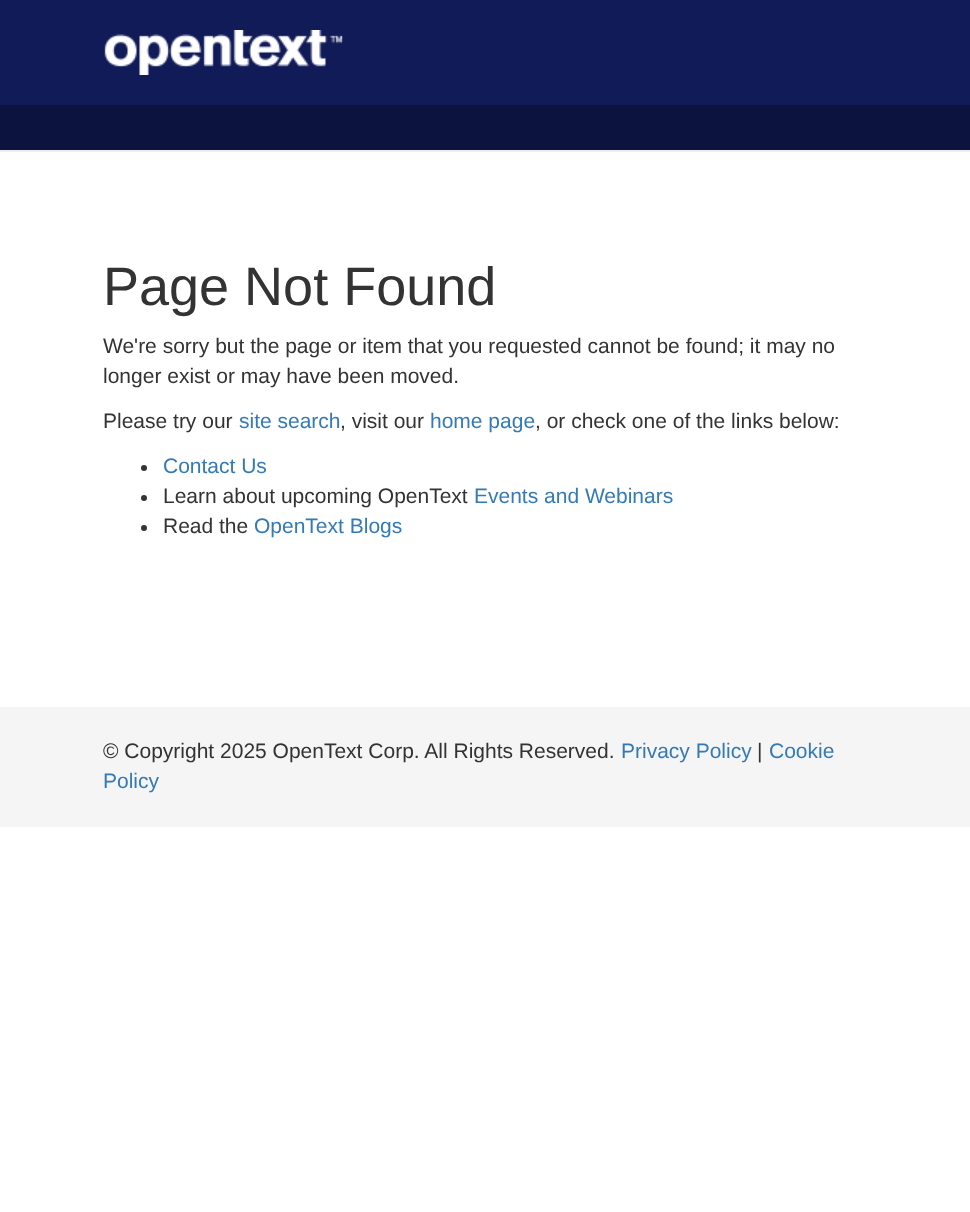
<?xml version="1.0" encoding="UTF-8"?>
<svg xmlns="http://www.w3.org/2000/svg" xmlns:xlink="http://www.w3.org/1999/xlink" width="970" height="1212">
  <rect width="100%" height="100%" fill="#ffffff" />
  <rect width="970" height="105" fill="#111b58" />
  <rect y="150" width="970" height="2" fill="#eeeeee" />
  <image x="104" y="30" width="239" height="45" xlink:href="image1.png" />
  <rect y="105" width="970" height="45" fill="#0c133e" />
  <circle cx="144" cy="468" r="3" fill="#333333" />
  <circle cx="144" cy="498" r="3" fill="#333333" />
  <circle cx="144" cy="528" r="3" fill="#333333" />
  <rect y="707" width="970" height="120" fill="#f5f5f5" />
  <text x="103" y="305" style="font-family: Liberation Sans; font-size: 54px; fill: #333333">Page Not Found</text>
  <text x="103" y="353" style="font-family: Liberation Sans; font-size: 21px; fill: #333333">We're sorry but the page or item that you requested cannot be found; it may no</text>
  <text x="103" y="383" style="font-family: Liberation Sans; font-size: 21px; fill: #333333">longer exist or may have been moved.</text>
  <text x="103" y="428" style="font-family: Liberation Sans; font-size: 21px; fill: #333333">Please try our</text>
  <text x="239" y="428" style="font-family: Liberation Sans; font-size: 21px; fill: #337ab7">site search</text>
  <text x="340" y="428" style="font-family: Liberation Sans; font-size: 21px; fill: #333333">, visit our</text>
  <text x="430" y="428" style="font-family: Liberation Sans; font-size: 21px; fill: #337ab7">home page</text>
  <text x="535" y="428" style="font-family: Liberation Sans; font-size: 21px; fill: #333333">, or check one of the links below:</text>
  <text x="163" y="473" style="font-family: Liberation Sans; font-size: 21px; fill: #337ab7">Contact Us</text>
  <text x="163" y="503" style="font-family: Liberation Sans; font-size: 21px; fill: #333333">Learn about upcoming OpenText</text>
  <text x="474" y="503" style="font-family: Liberation Sans; font-size: 21px; fill: #337ab7">Events and Webinars</text>
  <text x="163" y="533" style="font-family: Liberation Sans; font-size: 21px; fill: #333333">Read the</text>
  <text x="254" y="533" style="font-family: Liberation Sans; font-size: 21px; fill: #337ab7">OpenText Blogs</text>
  <text x="103" y="758" style="font-family: Liberation Sans; font-size: 21px; fill: #333333">© Copyright 2025 OpenText Corp. All Rights Reserved.</text>
  <text x="621" y="758" style="font-family: Liberation Sans; font-size: 21px; fill: #337ab7">Privacy Policy</text>
  <text x="757" y="758" style="font-family: Liberation Sans; font-size: 21px; fill: #333333">|</text>
  <text x="769" y="758" style="font-family: Liberation Sans; font-size: 21px; fill: #337ab7">Cookie</text>
  <text x="103" y="788" style="font-family: Liberation Sans; font-size: 21px; fill: #337ab7">Policy</text>
</svg>
